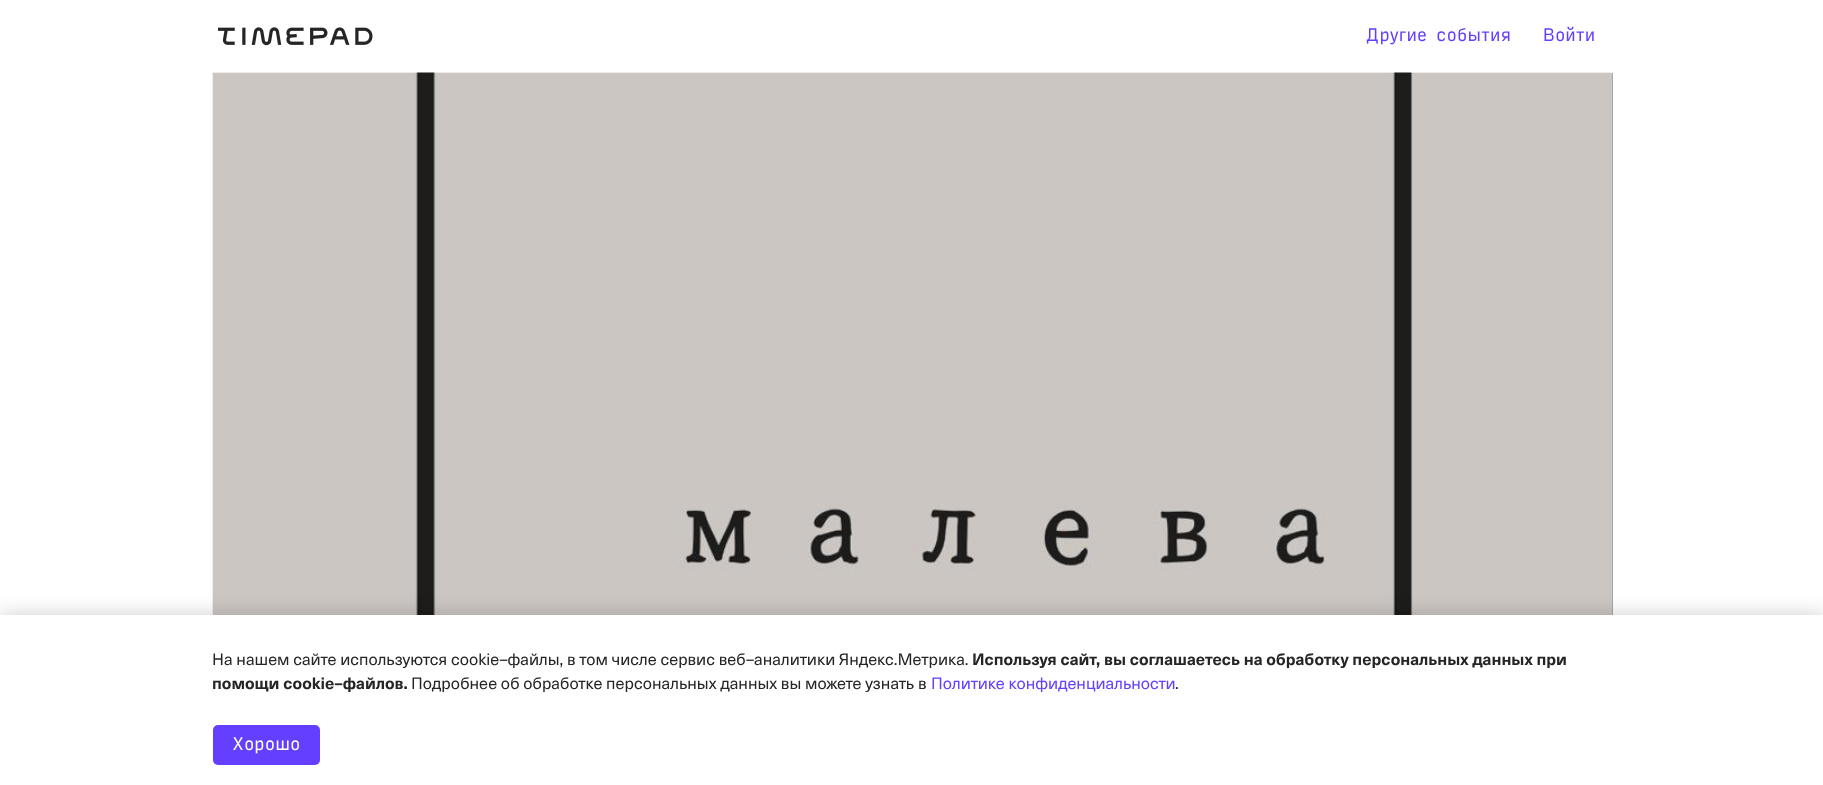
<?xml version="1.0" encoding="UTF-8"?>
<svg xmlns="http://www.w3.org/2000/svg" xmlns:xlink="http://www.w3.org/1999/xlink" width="1823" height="785">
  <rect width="100%" height="100%" fill="#ffffff" />
  <image x="218" y="27" width="155" height="19" xlink:href="image1.png" />
  <rect x="1612" y="73" width="1" height="542" fill="#878787" />
  <image x="212" y="72" width="1401" height="543" xlink:href="image2.png" />
  <rect y="615" width="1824" height="170" fill="#000000" fill-opacity="0.2" filter="blur(10px)" />
  <rect y="615" width="1823" height="170" fill="#ffffff" />
  <rect x="213" y="725" width="107" height="40" rx="5" fill="#643fff" />
  <text x="1366" y="41" style="font-family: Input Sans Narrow; font-size: 17.5px; fill: #643fff">Другие события</text>
  <text x="1543" y="41" style="font-family: Input Sans Narrow; font-size: 17.5px; fill: #643fff">Войти</text>
  <text x="212" y="665" style="font-family: 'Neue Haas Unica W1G'; font-size: 16.25px; fill: #252525">На нашем сайте используются cookie–файлы, в том числе сервис веб–аналитики Яндекс.Метрика.</text>
  <text x="972" y="665" style="font-family: 'Neue Haas Unica W1G'; font-size: 16.25px; font-weight: bold; fill: #252525">Используя сайт, вы соглашаетесь на обработку персональных данных при</text>
  <text x="212" y="689" style="font-family: 'Neue Haas Unica W1G'; font-size: 16.25px; font-weight: bold; fill: #252525">помощи cookie–файлов.</text>
  <text x="411" y="689" style="font-family: 'Neue Haas Unica W1G'; font-size: 16.25px; fill: #252525">Подробнее об обработке персональных данных вы можете узнать в</text>
  <text x="931" y="689" style="font-family: 'Neue Haas Unica W1G'; font-size: 16.25px; fill: #643fff">Политике конфиденциальности</text>
  <text x="1175" y="689" style="font-family: 'Neue Haas Unica W1G'; font-size: 16.25px; fill: #252525">.</text>
  <text x="232" y="750" style="font-family: Input Sans Narrow; font-size: 17.5px; fill: #ffffff">Хорошо</text>
</svg>
